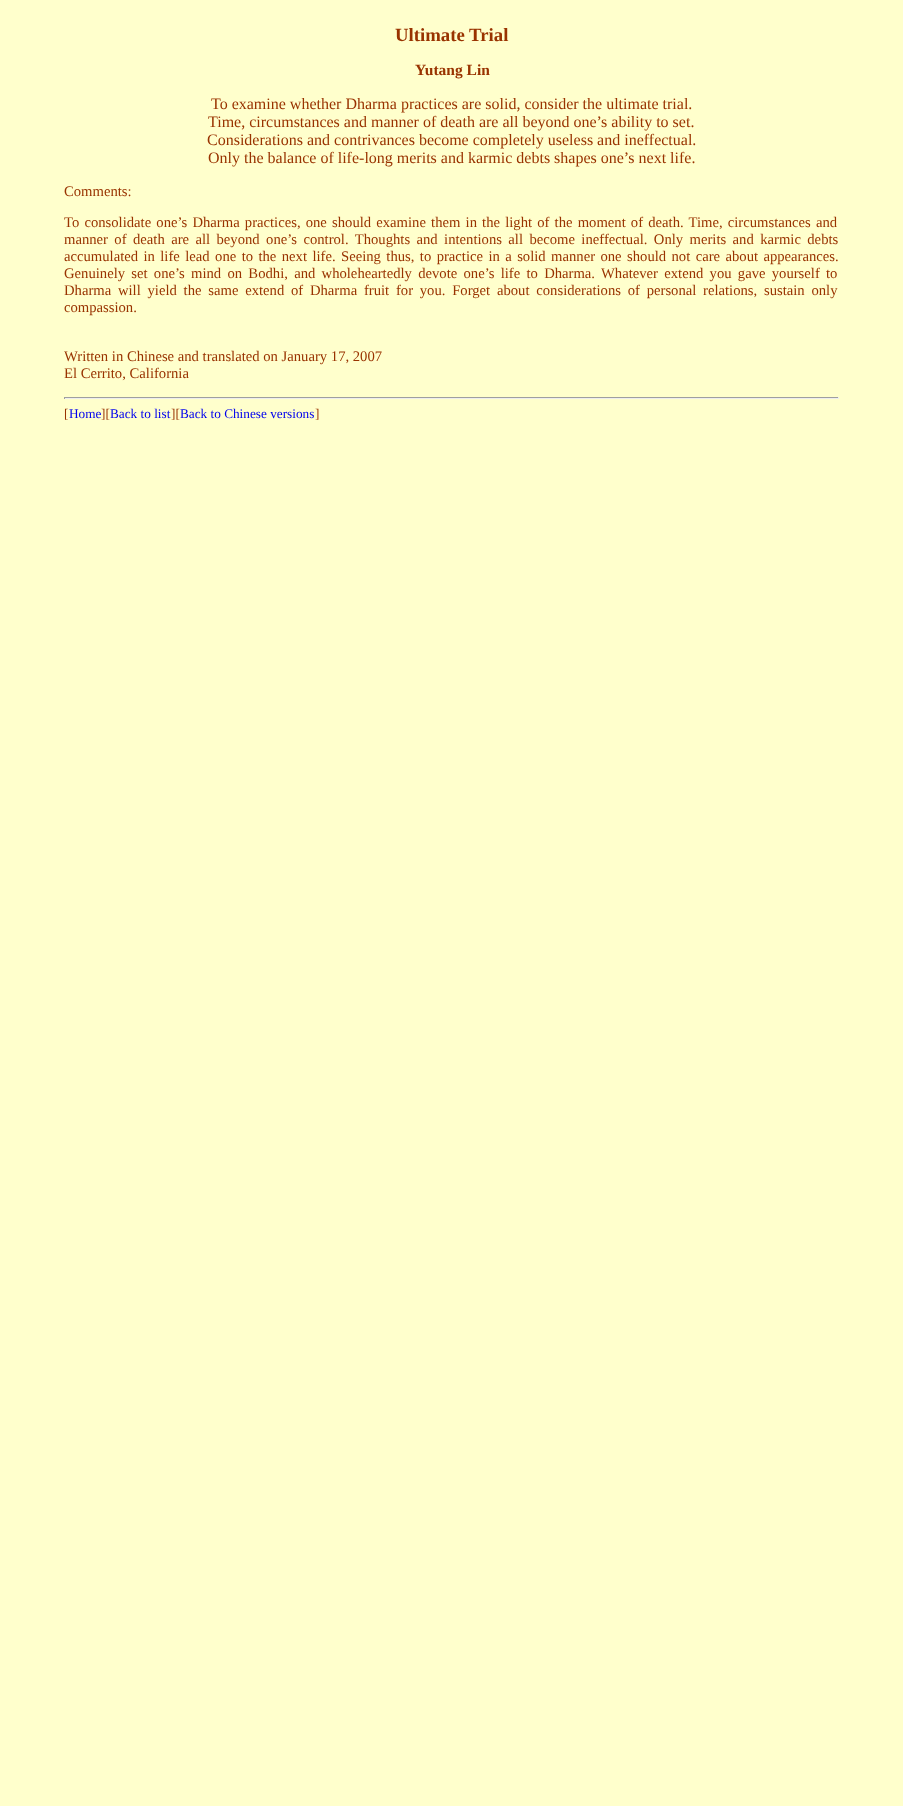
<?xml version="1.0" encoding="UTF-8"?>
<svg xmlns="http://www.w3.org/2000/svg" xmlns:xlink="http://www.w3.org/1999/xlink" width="903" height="1806">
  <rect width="100%" height="100%" fill="#ffffcc" />
  <rect x="64" y="397" width="775" height="1" fill="#9f9f9f" />
  <rect x="838" y="397" width="1" height="2" fill="#eeeeee" />
  <rect x="64" y="398" width="775" height="1" fill="#eeeeee" />
  <rect x="64" y="397" width="1" height="2" fill="#9f9f9f" />
  <text x="395" y="41" style="font-family: Liberation Serif; font-size: 18.75px; font-weight: bold; fill: #993300">Ultimate Trial</text>
  <text x="415" y="75" style="font-family: Liberation Serif; font-size: 15.5px; font-weight: bold; fill: #993300">Yutang Lin</text>
  <text x="211" y="109" style="font-family: Liberation Serif; font-size: 16px; fill: #993300">To examine whether Dharma practices are solid, consider the ultimate trial.</text>
  <text x="208" y="127" style="font-family: Liberation Serif; font-size: 16px; fill: #993300">Time, circumstances and manner of death are all beyond one’s ability to set.</text>
  <text x="207" y="145" style="font-family: Liberation Serif; font-size: 16px; fill: #993300">Considerations and contrivances become completely useless and ineffectual.</text>
  <text x="208" y="163" style="font-family: Liberation Serif; font-size: 16px; fill: #993300">Only the balance of life-long merits and karmic debts shapes one’s next life.</text>
  <text x="64" y="196" style="font-family: Liberation Serif; font-size: 14.67px; fill: #993300">Comments:</text>
  <text x="64" y="227" word-spacing="1.5" style="font-family: Liberation Serif; font-size: 14.67px; fill: #993300">To consolidate one’s Dharma practices, one should examine them in the light of the moment of death. Time, circumstances and</text>
  <text x="64" y="244" word-spacing="2.75" style="font-family: Liberation Serif; font-size: 14.67px; fill: #993300">manner of death are all beyond one’s control. Thoughts and intentions all become ineffectual. Only merits and karmic debts</text>
  <text x="64" y="261" word-spacing="1.75" style="font-family: Liberation Serif; font-size: 14.67px; fill: #993300">accumulated in life lead one to the next life. Seeing thus, to practice in a solid manner one should not care about appearances.</text>
  <text x="64" y="278" word-spacing="2.6" style="font-family: Liberation Serif; font-size: 14.67px; fill: #993300">Genuinely set one’s mind on Bodhi, and wholeheartedly devote one’s life to Dharma. Whatever extend you gave yourself to</text>
  <text x="64" y="295" word-spacing="3.1" style="font-family: Liberation Serif; font-size: 14.67px; fill: #993300">Dharma will yield the same extend of Dharma fruit for you. Forget about considerations of personal relations, sustain only</text>
  <text x="64" y="312" style="font-family: Liberation Serif; font-size: 14.67px; fill: #993300">compassion.</text>
  <text x="64" y="361" style="font-family: Liberation Serif; font-size: 14.67px; fill: #993300">Written in Chinese and translated on January 17, 2007</text>
  <text x="64" y="378" style="font-family: Liberation Serif; font-size: 14.67px; fill: #993300">El Cerrito, California</text>
  <text x="64" y="418" style="font-family: Liberation Serif; font-size: 13.25px; fill: #993300">[</text>
  <text x="69" y="418" style="font-family: Liberation Serif; font-size: 13.25px; fill: #0000ee">Home</text>
  <text x="101" y="418" style="font-family: Liberation Serif; font-size: 13.25px; fill: #993300">][</text>
  <text x="110" y="418" style="font-family: Liberation Serif; font-size: 13.25px; fill: #0000ee">Back to list</text>
  <text x="171" y="418" style="font-family: Liberation Serif; font-size: 13.25px; fill: #993300">][</text>
  <text x="180" y="418" style="font-family: Liberation Serif; font-size: 13.25px; fill: #0000ee">Back to Chinese versions</text>
  <text x="315" y="418" style="font-family: Liberation Serif; font-size: 13.25px; fill: #993300">]</text>
</svg>
